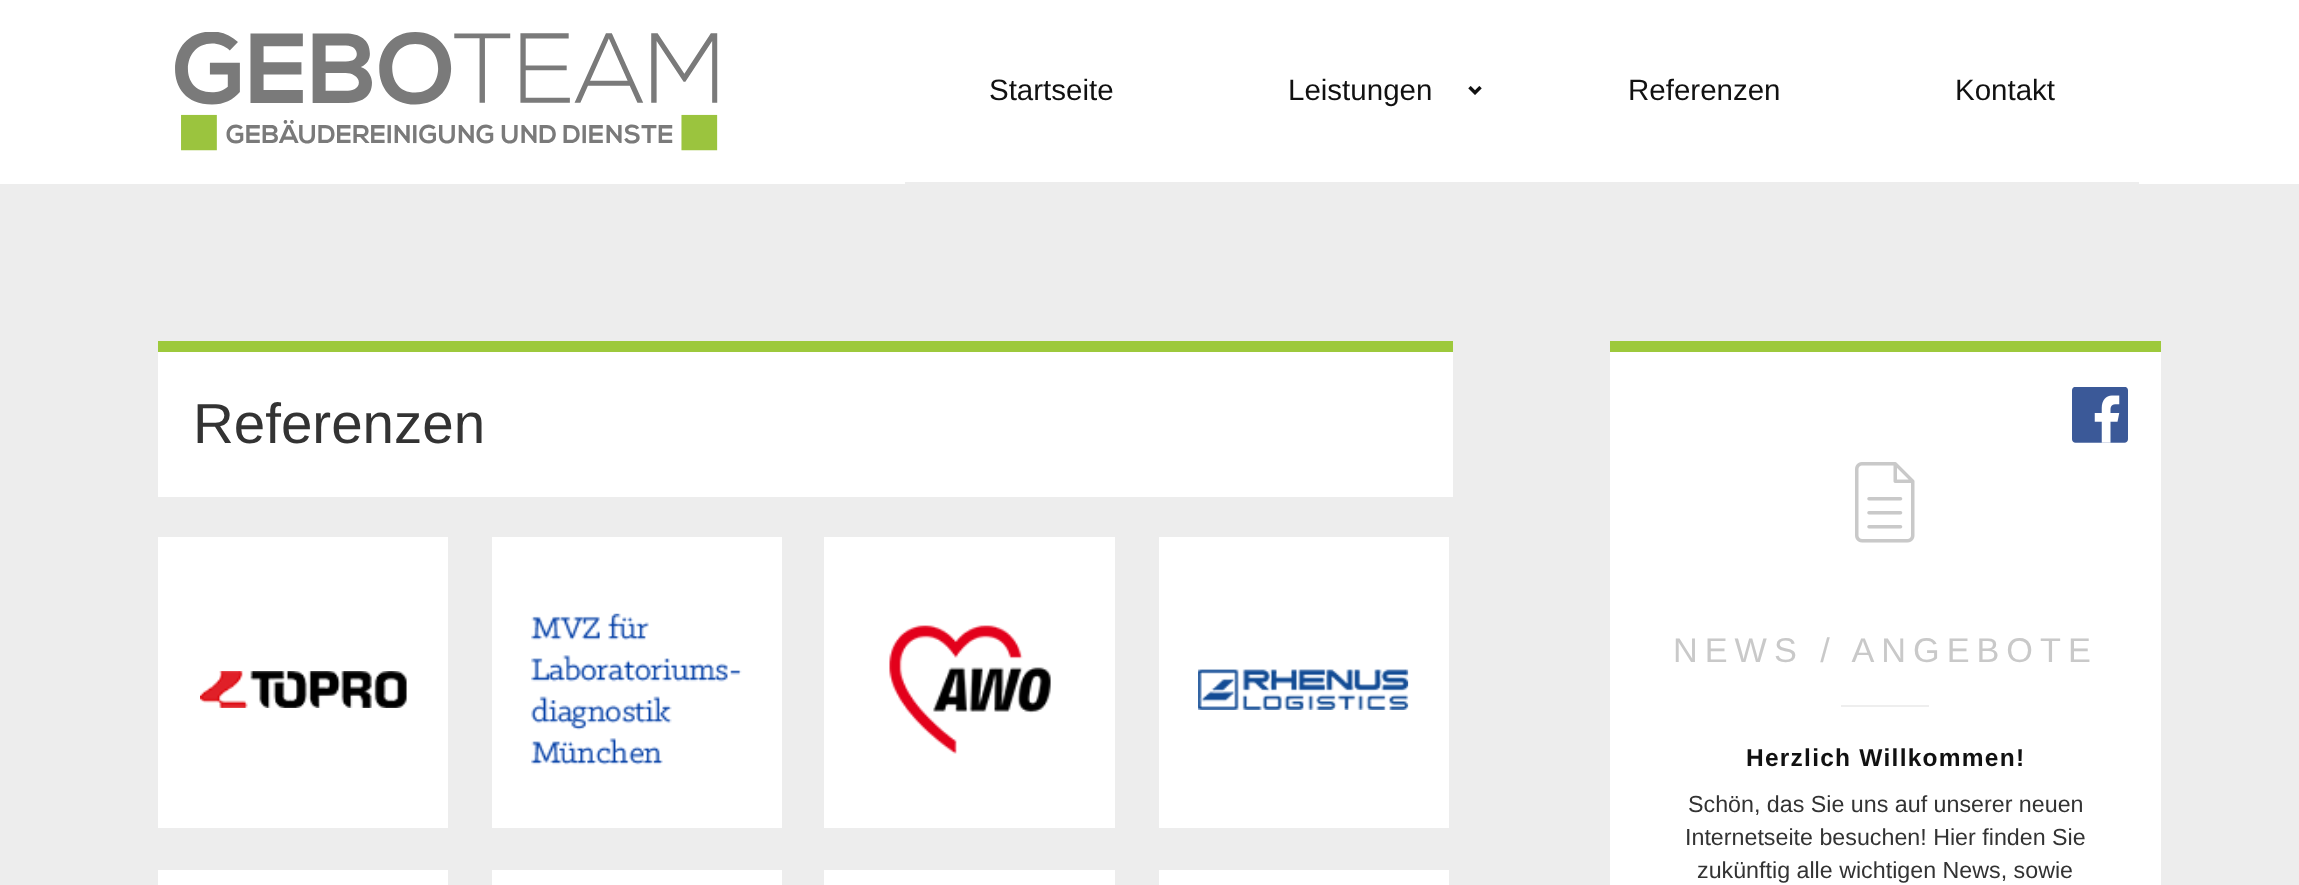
<?xml version="1.0" encoding="UTF-8"?>
<svg xmlns="http://www.w3.org/2000/svg" xmlns:xlink="http://www.w3.org/1999/xlink" width="2299" height="885">
  <rect width="100%" height="100%" fill="#ededed" />
  <rect width="2299" height="184" fill="#ffffff" />
  <image x="175" y="32" width="543" height="119" xlink:href="image1.png" />
  <rect x="905" y="182" width="1234" height="2" fill="#ededed" />
  <image x="1468" y="86" width="14" height="9" xlink:href="image2.png" />
  <rect x="158" y="352" width="1295" height="145" fill="#ffffff" />
  <rect x="158" y="341" width="1295" height="11" fill="#9dc93c" />
  <rect x="158" y="537" width="290" height="291" fill="#ffffff" />
  <image x="200" y="671" width="207" height="37" xlink:href="image3.png" />
  <rect x="492" y="537" width="290" height="291" fill="#ffffff" />
  <image x="531" y="613" width="211" height="152" xlink:href="image4.png" />
  <rect x="824" y="537" width="291" height="291" fill="#ffffff" />
  <image x="889" y="625" width="162" height="129" xlink:href="image5.png" />
  <rect x="1159" y="537" width="290" height="291" fill="#ffffff" />
  <image x="1198" y="669" width="211" height="41" xlink:href="image6.png" />
  <rect x="158" y="870" width="290" height="15" fill="#ffffff" />
  <rect x="492" y="870" width="290" height="15" fill="#ffffff" />
  <rect x="824" y="870" width="291" height="15" fill="#ffffff" />
  <rect x="1159" y="870" width="290" height="15" fill="#ffffff" />
  <rect x="1610" y="352" width="551" height="533" fill="#ffffff" />
  <rect x="1610" y="341" width="551" height="11" fill="#9dc93c" />
  <image x="2072" y="387" width="56" height="56" xlink:href="image7.png" />
  <image x="1855" y="462" width="60" height="81" xlink:href="image8.png" />
  <rect x="1841" y="705" width="88" height="2" fill="#eeeeee" />
  <text x="989" y="100" style="font-family: Liberation Sans; font-size: 29.5px; fill: #111111">Startseite</text>
  <text x="1288" y="100" style="font-family: Liberation Sans; font-size: 29.5px; fill: #111111">Leistungen</text>
  <text x="1628" y="100" style="font-family: Liberation Sans; font-size: 29.5px; fill: #111111">Referenzen</text>
  <text x="1955" y="100" style="font-family: Liberation Sans; font-size: 29.5px; fill: #111111">Kontakt</text>
  <text x="193" y="443" style="font-family: Liberation Sans; font-size: 56.5px; fill: #333333">Referenzen</text>
  <text x="1673" y="662" style="font-family: Liberation Sans; font-size: 34.25px; letter-spacing: 7px; fill: #c9c9c9">NEWS / ANGEBOTE</text>
  <text x="1746" y="766" style="font-family: Liberation Sans; font-size: 24.5px; font-weight: bold; letter-spacing: 1.25px; fill: #111111">Herzlich Willkommen!</text>
  <text x="1688" y="812" style="font-family: Liberation Sans; font-size: 23.25px; fill: #333333">Schön, das Sie uns auf unserer neuen</text>
  <text x="1685" y="845" style="font-family: Liberation Sans; font-size: 23.25px; fill: #333333">Internetseite besuchen! Hier finden Sie</text>
  <text x="1697" y="878" style="font-family: Liberation Sans; font-size: 23.25px; fill: #333333">zukünftig alle wichtigen News, sowie</text>
</svg>
